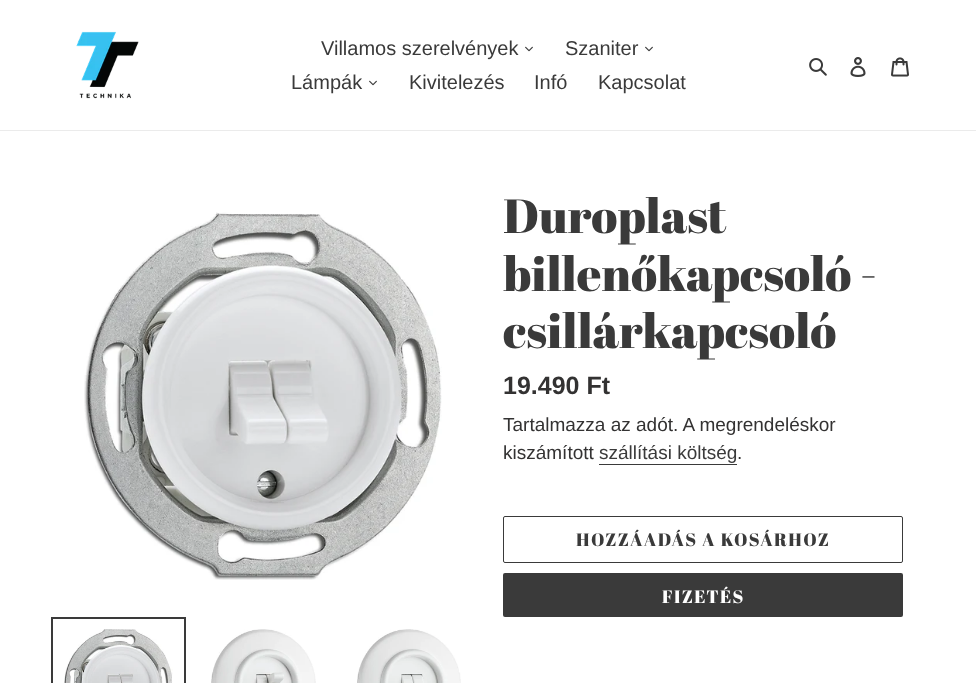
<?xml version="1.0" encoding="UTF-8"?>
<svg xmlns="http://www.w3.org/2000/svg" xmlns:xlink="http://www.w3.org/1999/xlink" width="976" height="683">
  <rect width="100%" height="100%" fill="#ffffff" />
  <rect y="130" width="976" height="1" fill="#ebebeb" />
  <image x="76" y="31" width="63" height="68" xlink:href="image1.png" />
  <image x="525" y="46" width="8" height="6" xlink:href="image2.png" />
  <image x="645" y="46" width="8" height="6" xlink:href="image2.png" />
  <image x="369" y="80" width="8" height="6" xlink:href="image2.png" />
  <image x="809" y="58" width="18" height="18" xlink:href="image3.png" />
  <image x="850" y="57" width="16" height="20" xlink:href="image4.png" />
  <image x="891" y="57" width="18" height="20" xlink:href="image5.png" />
  <image x="84" y="212" width="358" height="368" xlink:href="image6.png" />
  <rect x="52" y="618" width="133" height="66" fill="none" stroke="#3a3a3a" stroke-width="2" />
  <image x="64" y="629" width="109" height="54" xlink:href="image7.png" />
  <image x="211" y="629" width="105" height="54" xlink:href="image8.png" />
  <image x="357" y="629" width="104" height="54" xlink:href="image9.png" />
  <rect x="599" y="464" width="138" height="1" fill="#3a3a3a" />
  <rect x="503.5" y="516.5" width="399" height="46" rx="1.5" fill="none" stroke="#3a3a3a" />
  <rect x="503" y="573" width="400" height="44" rx="2" fill="#3a3a3a" />
  <text x="321" y="55" style="font-family: Liberation Sans; font-size: 20px; fill: #3a3a3a">Villamos szerelvények</text>
  <text x="565" y="55" style="font-family: Liberation Sans; font-size: 20px; fill: #3a3a3a">Szaniter</text>
  <text x="291" y="89" style="font-family: Liberation Sans; font-size: 20px; fill: #3a3a3a">Lámpák</text>
  <text x="409" y="89" style="font-family: Liberation Sans; font-size: 20px; fill: #3a3a3a">Kivitelezés</text>
  <text x="534" y="89" style="font-family: Liberation Sans; font-size: 20px; fill: #3a3a3a">Infó</text>
  <text x="598" y="89" style="font-family: Liberation Sans; font-size: 20px; fill: #3a3a3a">Kapcsolat</text>
  <text x="503" y="233" style="font-family: Abril Fatface; font-size: 48px; fill: #3a3a3a">Duroplast</text>
  <text x="503" y="291" style="font-family: Abril Fatface; font-size: 48px; fill: #3a3a3a">billenőkapcsoló -</text>
  <text x="503" y="348" style="font-family: Abril Fatface; font-size: 48px; fill: #3a3a3a">csillárkapcsoló</text>
  <text x="503" y="394" style="font-family: Liberation Sans; font-size: 25px; font-weight: bold; fill: #333232">19.490 Ft</text>
  <text x="503" y="431" style="font-family: Liberation Sans; font-size: 19px; fill: #333232">Tartalmazza az adót. A megrendeléskor</text>
  <text x="503" y="459" style="font-family: Liberation Sans; font-size: 19px; fill: #333232">kiszámított</text>
  <text x="599" y="459" style="font-family: Liberation Sans; font-size: 19px; fill: #3a3a3a">szállítási költség</text>
  <text x="737" y="459" style="font-family: Liberation Sans; font-size: 19px; fill: #333232">.</text>
  <text x="576" y="546" style="font-family: Abril Fatface; font-size: 18px; letter-spacing: 1.4px; fill: #3a3a3a">HOZZÁADÁS A KOSÁRHOZ</text>
  <text x="662" y="603" style="font-family: Abril Fatface; font-size: 18px; letter-spacing: 1.4px; fill: #ffffff">FIZETÉS</text>
</svg>
